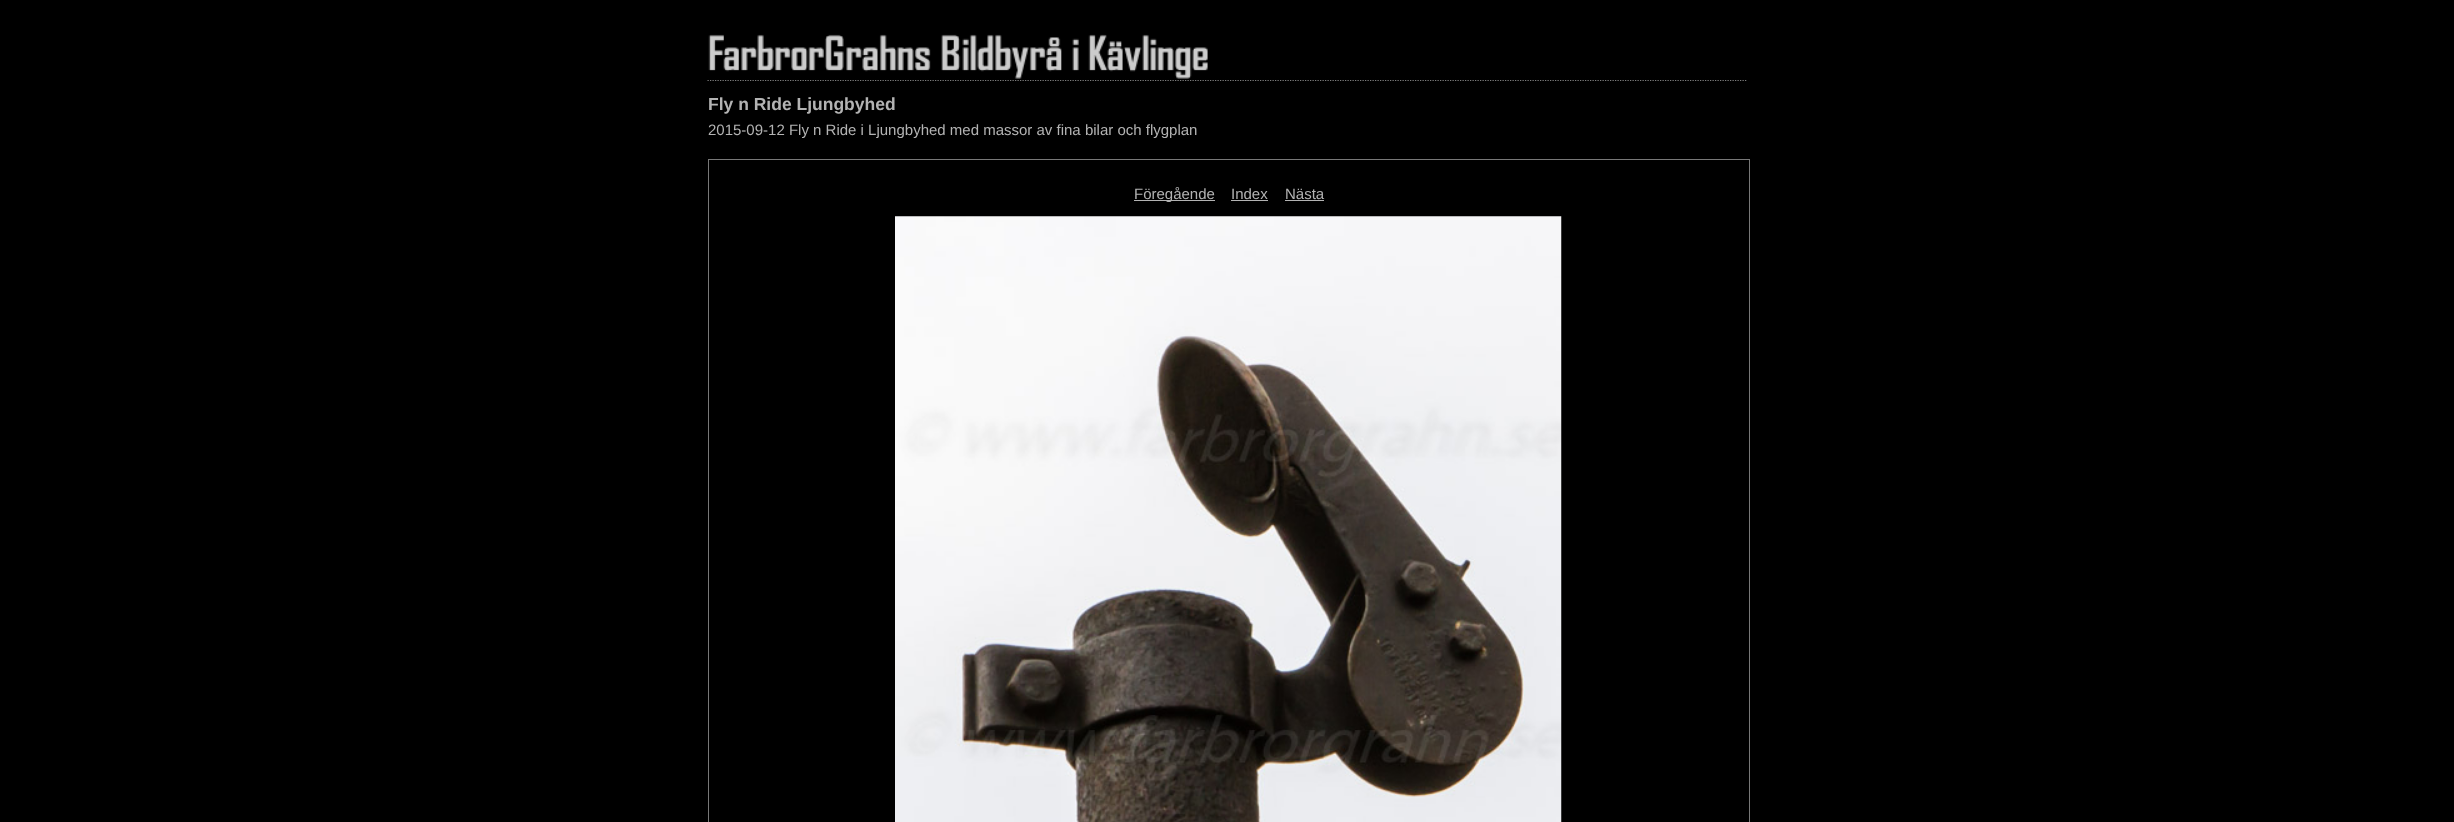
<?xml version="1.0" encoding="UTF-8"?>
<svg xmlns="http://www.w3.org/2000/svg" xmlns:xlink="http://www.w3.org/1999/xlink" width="2454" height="822">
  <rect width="100%" height="100%" fill="#000000" />
  <image x="708" y="34" width="500" height="45" xlink:href="image1.png" />
  <path d="M 707.5 80.5 h 1040" fill="none" stroke="#7f7f7f" stroke-width="1.2" stroke-dasharray="1.25 1.25" />
  <rect x="708.5" y="159.5" width="1041" height="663" fill="none" stroke="#787878" />
  <rect x="1134" y="200" width="81" height="1" fill="#b3b3b3" />
  <rect x="1231" y="200" width="37" height="1" fill="#b3b3b3" />
  <rect x="1285" y="200" width="39" height="1" fill="#b3b3b3" />
  <image x="895" y="216" width="667" height="606" xlink:href="image2.png" />
  <text x="708" y="110" style="font-family: Liberation Sans; font-size: 17.5px; font-weight: bold; fill: #b3b3b3">Fly n Ride Ljungbyhed</text>
  <text x="708" y="135" style="font-family: Liberation Sans; font-size: 15px; fill: #b3b3b3">2015-09-12 Fly n Ride i Ljungbyhed med massor av fina bilar och flygplan</text>
  <text x="1134" y="199" style="font-family: Liberation Sans; font-size: 15px; fill: #b3b3b3">Föregående</text>
  <text x="1231" y="199" style="font-family: Liberation Sans; font-size: 15px; fill: #b3b3b3">Index</text>
  <text x="1285" y="199" style="font-family: Liberation Sans; font-size: 15px; fill: #b3b3b3">Nästa</text>
</svg>
